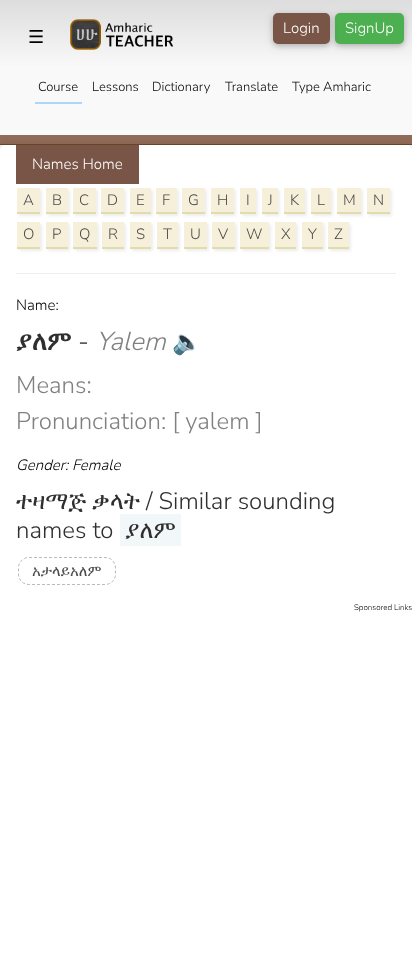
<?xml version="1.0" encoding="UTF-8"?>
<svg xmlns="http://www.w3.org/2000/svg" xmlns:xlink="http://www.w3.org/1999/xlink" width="412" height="966">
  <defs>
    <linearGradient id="g1" gradientUnits="userSpaceOnUse" x1="206" y1="0" x2="206" y2="966"><stop offset="0" stop-color="#dddddd" /><stop offset="0.07" stop-color="#f9f9f9" /></linearGradient>
  </defs>
  <rect width="100%" height="100%" fill="#ffffff" />
  <rect width="412" height="150" fill="url(#g1)" />
  <image x="70" y="19" width="104" height="31" xlink:href="image1.png" />
  <rect x="335" y="15" width="69" height="31" rx="5" fill="#000000" fill-opacity="0.12" filter="blur(5px)" />
  <rect x="335" y="15" width="69" height="31" rx="5" fill="#000000" fill-opacity="0.16" filter="blur(2.5px)" />
  <rect x="335" y="13" width="69" height="31" rx="5" fill="#4caf50" />
  <rect x="273" y="15" width="57" height="31" rx="5" fill="#000000" fill-opacity="0.12" filter="blur(5px)" />
  <rect x="273" y="15" width="57" height="31" rx="5" fill="#000000" fill-opacity="0.16" filter="blur(2.5px)" />
  <rect x="273" y="13" width="57" height="31" rx="5" fill="#795548" />
  <rect x="35" y="102" width="47" height="2" fill="#acd6fb" />
  <rect y="135" width="412" height="9" fill="#906b57" />
  <rect y="144" width="412" height="1" fill="#6d4929" />
  <rect y="147" width="412" height="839" rx="5" fill="#000000" fill-opacity="0.12" filter="blur(5px)" />
  <rect y="147" width="412" height="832" rx="5" fill="#000000" fill-opacity="0.16" filter="blur(2.5px)" />
  <rect y="145" width="412" height="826" rx="5" fill="#ffffff" />
  <rect x="16" y="145" width="123" height="39" fill="#795548" />
  <rect x="19" y="190" width="23" height="26" fill="#ededed" filter="blur(1.5px)" />
  <rect x="17" y="188" width="23" height="24" fill="#f6efd9" />
  <rect x="17" y="212" width="23" height="2" fill="#e1dcac" />
  <rect x="48" y="190" width="22" height="26" fill="#ededed" filter="blur(1.5px)" />
  <rect x="46" y="188" width="22" height="24" fill="#f6efd9" />
  <rect x="46" y="212" width="22" height="2" fill="#e1dcac" />
  <rect x="75" y="190" width="23" height="26" fill="#ededed" filter="blur(1.5px)" />
  <rect x="73" y="188" width="23" height="24" fill="#f6efd9" />
  <rect x="73" y="212" width="23" height="2" fill="#e1dcac" />
  <rect x="103" y="190" width="23" height="26" fill="#ededed" filter="blur(1.5px)" />
  <rect x="101" y="188" width="23" height="24" fill="#f6efd9" />
  <rect x="101" y="212" width="23" height="2" fill="#e1dcac" />
  <rect x="132" y="190" width="21" height="26" fill="#ededed" filter="blur(1.5px)" />
  <rect x="130" y="188" width="21" height="24" fill="#f6efd9" />
  <rect x="130" y="212" width="21" height="2" fill="#e1dcac" />
  <rect x="158" y="190" width="21" height="26" fill="#ededed" filter="blur(1.5px)" />
  <rect x="156" y="188" width="21" height="24" fill="#f6efd9" />
  <rect x="156" y="212" width="21" height="2" fill="#e1dcac" />
  <rect x="184" y="190" width="23" height="26" fill="#ededed" filter="blur(1.5px)" />
  <rect x="182" y="188" width="23" height="24" fill="#f6efd9" />
  <rect x="182" y="212" width="23" height="2" fill="#e1dcac" />
  <rect x="213" y="190" width="23" height="26" fill="#ededed" filter="blur(1.5px)" />
  <rect x="211" y="188" width="23" height="24" fill="#f6efd9" />
  <rect x="211" y="212" width="23" height="2" fill="#e1dcac" />
  <rect x="242" y="190" width="16" height="26" fill="#ededed" filter="blur(1.5px)" />
  <rect x="240" y="188" width="16" height="24" fill="#f6efd9" />
  <rect x="240" y="212" width="16" height="2" fill="#e1dcac" />
  <rect x="264" y="190" width="16" height="26" fill="#ededed" filter="blur(1.5px)" />
  <rect x="262" y="188" width="16" height="24" fill="#f6efd9" />
  <rect x="262" y="212" width="16" height="2" fill="#e1dcac" />
  <rect x="286" y="190" width="21" height="26" fill="#ededed" filter="blur(1.5px)" />
  <rect x="284" y="188" width="21" height="24" fill="#f6efd9" />
  <rect x="284" y="212" width="21" height="2" fill="#e1dcac" />
  <rect x="313" y="190" width="20" height="26" fill="#ededed" filter="blur(1.5px)" />
  <rect x="311" y="188" width="20" height="24" fill="#f6efd9" />
  <rect x="311" y="212" width="20" height="2" fill="#e1dcac" />
  <rect x="339" y="190" width="24" height="26" fill="#ededed" filter="blur(1.5px)" />
  <rect x="337" y="188" width="24" height="24" fill="#f6efd9" />
  <rect x="337" y="212" width="24" height="2" fill="#e1dcac" />
  <rect x="369" y="190" width="23" height="26" fill="#ededed" filter="blur(1.5px)" />
  <rect x="367" y="188" width="23" height="24" fill="#f6efd9" />
  <rect x="367" y="212" width="23" height="2" fill="#e1dcac" />
  <rect x="19" y="224" width="23" height="27" fill="#ededed" filter="blur(1.5px)" />
  <rect x="17" y="222" width="23" height="25" fill="#f6efd9" />
  <rect x="17" y="247" width="23" height="2" fill="#e1dcac" />
  <rect x="48" y="224" width="22" height="27" fill="#ededed" filter="blur(1.5px)" />
  <rect x="46" y="222" width="22" height="25" fill="#f6efd9" />
  <rect x="46" y="247" width="22" height="2" fill="#e1dcac" />
  <rect x="75" y="224" width="24" height="27" fill="#ededed" filter="blur(1.5px)" />
  <rect x="73" y="222" width="24" height="25" fill="#f6efd9" />
  <rect x="73" y="247" width="24" height="2" fill="#e1dcac" />
  <rect x="104" y="224" width="22" height="27" fill="#ededed" filter="blur(1.5px)" />
  <rect x="102" y="222" width="22" height="25" fill="#f6efd9" />
  <rect x="102" y="247" width="22" height="2" fill="#e1dcac" />
  <rect x="132" y="224" width="21" height="27" fill="#ededed" filter="blur(1.5px)" />
  <rect x="130" y="222" width="21" height="25" fill="#f6efd9" />
  <rect x="130" y="247" width="21" height="2" fill="#e1dcac" />
  <rect x="159" y="224" width="21" height="27" fill="#ededed" filter="blur(1.5px)" />
  <rect x="157" y="222" width="21" height="25" fill="#f6efd9" />
  <rect x="157" y="247" width="21" height="2" fill="#e1dcac" />
  <rect x="186" y="224" width="23" height="27" fill="#ededed" filter="blur(1.5px)" />
  <rect x="184" y="222" width="23" height="25" fill="#f6efd9" />
  <rect x="184" y="247" width="23" height="2" fill="#e1dcac" />
  <rect x="214" y="224" width="23" height="27" fill="#ededed" filter="blur(1.5px)" />
  <rect x="212" y="222" width="23" height="25" fill="#f6efd9" />
  <rect x="212" y="247" width="23" height="2" fill="#e1dcac" />
  <rect x="242" y="224" width="29" height="27" fill="#ededed" filter="blur(1.5px)" />
  <rect x="240" y="222" width="29" height="25" fill="#f6efd9" />
  <rect x="240" y="247" width="29" height="2" fill="#e1dcac" />
  <rect x="277" y="224" width="21" height="27" fill="#ededed" filter="blur(1.5px)" />
  <rect x="275" y="222" width="21" height="25" fill="#f6efd9" />
  <rect x="275" y="247" width="21" height="2" fill="#e1dcac" />
  <rect x="304" y="224" width="21" height="27" fill="#ededed" filter="blur(1.5px)" />
  <rect x="302" y="222" width="21" height="25" fill="#f6efd9" />
  <rect x="302" y="247" width="21" height="2" fill="#e1dcac" />
  <rect x="330" y="224" width="21" height="27" fill="#ededed" filter="blur(1.5px)" />
  <rect x="328" y="222" width="21" height="25" fill="#f6efd9" />
  <rect x="328" y="247" width="21" height="2" fill="#e1dcac" />
  <rect x="16" y="273" width="380" height="1" fill="#eeeeee" />
  <rect x="120" y="514" width="61" height="32" fill="#f2f8f9" />
  <path d="M 29 557.5 h 76 c 6 0 10.5 4.5 10.5 10.5 v 6 c 0 6 -4.5 10.5 -10.5 10.5 h -76 c -6 0 -10.5 -4.5 -10.5 -10.5 v -6 c 0 -6 4.5 -10.5 10.5 -10.5 z" fill="none" stroke="#bbbbbb" stroke-dasharray="3 2" />
  <text x="28" y="43" style="font-family: DejaVu Sans; font-size: 18px; fill: #000000">☰</text>
  <text x="283" y="33" style="font-family: Nunito Sans; font-size: 15px; font-weight: 300; fill: #ffffff">Login</text>
  <text x="345" y="33" style="font-family: Nunito Sans; font-size: 15px; font-weight: 300; fill: #ffffff">SignUp</text>
  <text x="38" y="91" style="font-family: Nunito Sans; font-size: 13px; font-weight: 300; fill: #000000">Course</text>
  <text x="92" y="91" style="font-family: Nunito Sans; font-size: 13px; font-weight: 300; fill: #000000">Lessons</text>
  <text x="152" y="91" style="font-family: Nunito Sans; font-size: 13px; font-weight: 300; fill: #000000">Dictionary</text>
  <text x="225" y="91" style="font-family: Nunito Sans; font-size: 13px; font-weight: 300; fill: #000000">Translate</text>
  <text x="292" y="91" style="font-family: Nunito Sans; font-size: 13px; font-weight: 300; fill: #000000">Type Amharic</text>
  <text x="32" y="169" style="font-family: Nunito Sans; font-size: 15px; font-weight: 300; fill: #ffffff">Names Home</text>
  <text x="23" y="205" style="font-family: Nunito Sans; font-size: 15px; font-weight: 300; fill: #4d4b4b">A</text>
  <text x="52" y="205" style="font-family: Nunito Sans; font-size: 15px; font-weight: 300; fill: #4d4b4b">B</text>
  <text x="79" y="205" style="font-family: Nunito Sans; font-size: 15px; font-weight: 300; fill: #4d4b4b">C</text>
  <text x="107" y="205" style="font-family: Nunito Sans; font-size: 15px; font-weight: 300; fill: #4d4b4b">D</text>
  <text x="136" y="205" style="font-family: Nunito Sans; font-size: 15px; font-weight: 300; fill: #4d4b4b">E</text>
  <text x="162" y="205" style="font-family: Nunito Sans; font-size: 15px; font-weight: 300; fill: #4d4b4b">F</text>
  <text x="188" y="205" style="font-family: Nunito Sans; font-size: 15px; font-weight: 300; fill: #4d4b4b">G</text>
  <text x="217" y="205" style="font-family: Nunito Sans; font-size: 15px; font-weight: 300; fill: #4d4b4b">H</text>
  <text x="246" y="205" style="font-family: Nunito Sans; font-size: 15px; font-weight: 300; fill: #4d4b4b">I</text>
  <text x="268" y="205" style="font-family: Nunito Sans; font-size: 15px; font-weight: 300; fill: #4d4b4b">J</text>
  <text x="290" y="205" style="font-family: Nunito Sans; font-size: 15px; font-weight: 300; fill: #4d4b4b">K</text>
  <text x="317" y="205" style="font-family: Nunito Sans; font-size: 15px; font-weight: 300; fill: #4d4b4b">L</text>
  <text x="343" y="205" style="font-family: Nunito Sans; font-size: 15px; font-weight: 300; fill: #4d4b4b">M</text>
  <text x="373" y="205" style="font-family: Nunito Sans; font-size: 15px; font-weight: 300; fill: #4d4b4b">N</text>
  <text x="23" y="239" style="font-family: Nunito Sans; font-size: 15px; font-weight: 300; fill: #4d4b4b">O</text>
  <text x="52" y="239" style="font-family: Nunito Sans; font-size: 15px; font-weight: 300; fill: #4d4b4b">P</text>
  <text x="79" y="239" style="font-family: Nunito Sans; font-size: 15px; font-weight: 300; fill: #4d4b4b">Q</text>
  <text x="108" y="239" style="font-family: Nunito Sans; font-size: 15px; font-weight: 300; fill: #4d4b4b">R</text>
  <text x="136" y="239" style="font-family: Nunito Sans; font-size: 15px; font-weight: 300; fill: #4d4b4b">S</text>
  <text x="163" y="239" style="font-family: Nunito Sans; font-size: 15px; font-weight: 300; fill: #4d4b4b">T</text>
  <text x="190" y="239" style="font-family: Nunito Sans; font-size: 15px; font-weight: 300; fill: #4d4b4b">U</text>
  <text x="218" y="239" style="font-family: Nunito Sans; font-size: 15px; font-weight: 300; fill: #4d4b4b">V</text>
  <text x="246" y="239" style="font-family: Nunito Sans; font-size: 15px; font-weight: 300; fill: #4d4b4b">W</text>
  <text x="281" y="239" style="font-family: Nunito Sans; font-size: 15px; font-weight: 300; fill: #4d4b4b">X</text>
  <text x="308" y="239" style="font-family: Nunito Sans; font-size: 15px; font-weight: 300; fill: #4d4b4b">Y</text>
  <text x="334" y="239" style="font-family: Nunito Sans; font-size: 15px; font-weight: 300; fill: #4d4b4b">Z</text>
  <text x="16" y="310" style="font-family: Nunito Sans; font-size: 15px; font-weight: 300; fill: #000000">Name:</text>
  <text x="16" y="350" style="font-family: FreeSerif; font-size: 26px; font-weight: bold; fill: #2f2f2f">ያለም</text>
  <text x="78" y="350" style="font-family: Nunito Sans; font-size: 26px; font-weight: 300; fill: #2f2f2f">-</text>
  <text x="96" y="350" style="font-family: Nunito Sans; font-size: 26px; font-weight: 300; font-style: italic; fill: #808080">Yalem</text>
  <text x="172" y="350" style="font-family: Noto Color Emoji; font-size: 24px; fill: #f6b13b">🔈</text>
  <text x="16" y="393" style="font-family: Nunito Sans; font-size: 24px; font-weight: 300; fill: #808080">Means:</text>
  <text x="16" y="429" style="font-family: Nunito Sans; font-size: 24px; font-weight: 300; fill: #808080">Pronunciation: [ yalem ]</text>
  <text x="16" y="470" style="font-family: Nunito Sans; font-size: 15px; font-weight: 300; font-style: italic; fill: #000000">Gender: Female</text>
  <text x="16" y="509" style="font-family: FreeSerif; font-size: 24px; fill: #2f2f2f">ተዛማጅ ቃላት</text>
  <text x="146" y="509" style="font-family: Nunito Sans; font-size: 24px; font-weight: 300; fill: #2f2f2f">/ Similar sounding</text>
  <text x="16" y="538" style="font-family: Nunito Sans; font-size: 24px; font-weight: 300; fill: #2f2f2f">names to</text>
  <text x="125" y="538" style="font-family: FreeSerif; font-size: 24px; fill: #2f2f2f">ያለም</text>
  <text x="32" y="576" style="font-family: FreeSerif; font-size: 15px; fill: #4d4b4b">አታላይአለም</text>
  <text x="354" y="610" style="font-family: Nunito Sans; font-size: 8px; font-weight: 300; fill: #000000">Sponsored Links</text>
</svg>
